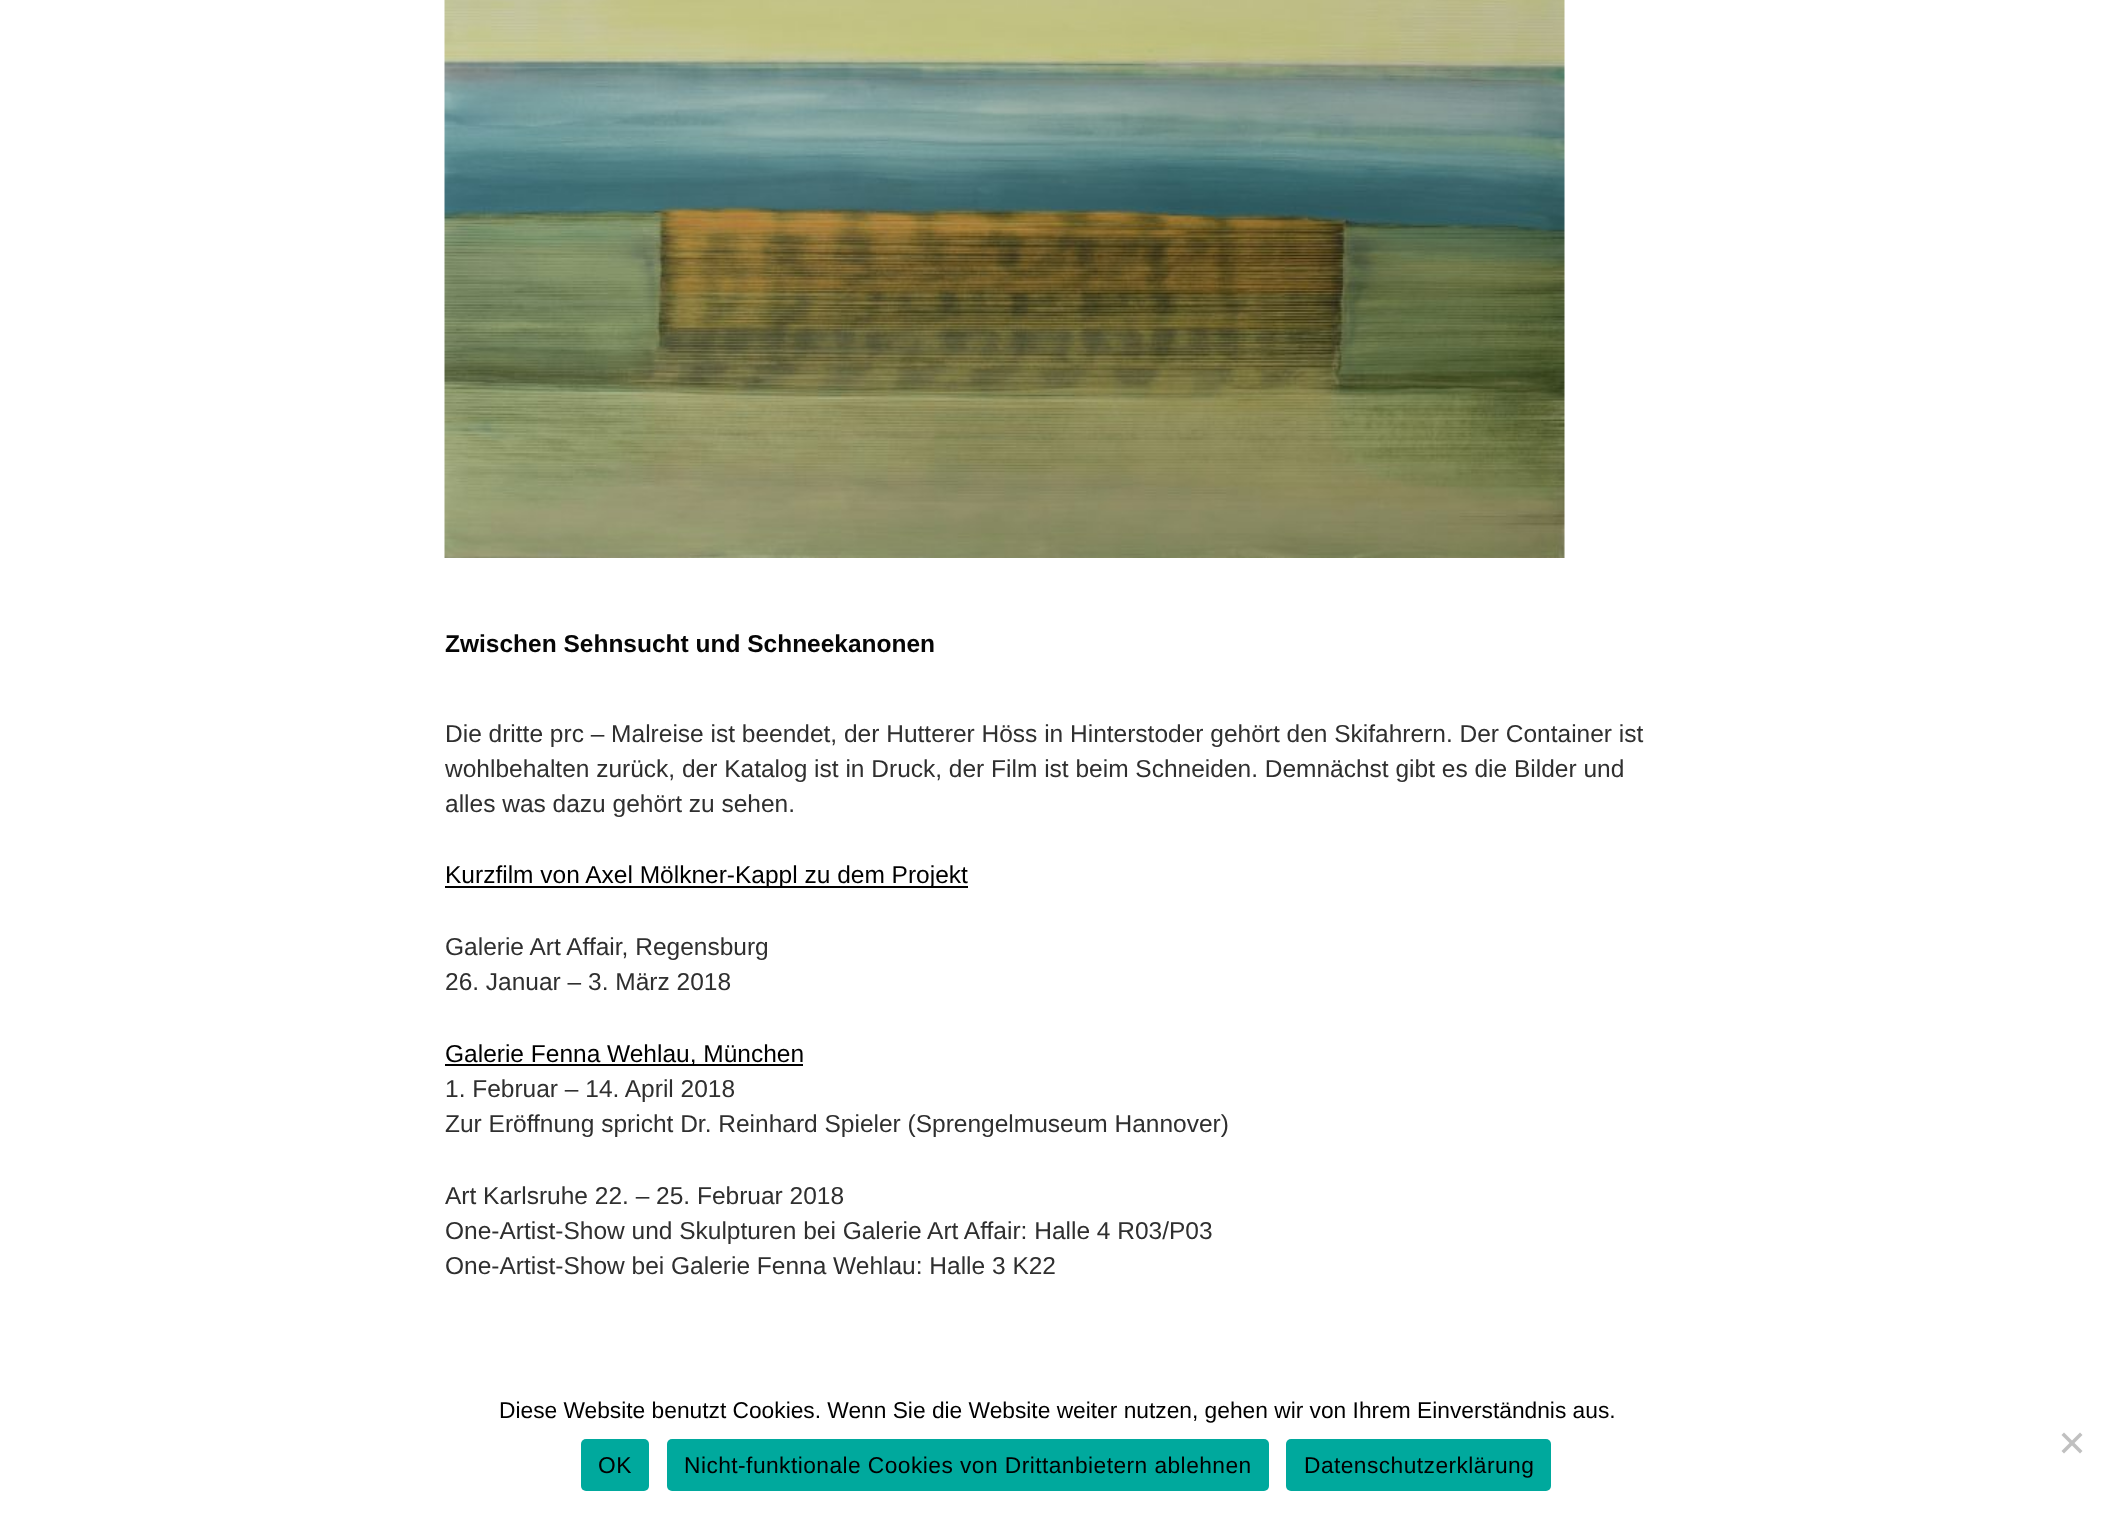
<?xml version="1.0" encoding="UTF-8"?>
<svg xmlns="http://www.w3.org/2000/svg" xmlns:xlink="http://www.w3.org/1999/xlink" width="2113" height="1517">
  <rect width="100%" height="100%" fill="#ffffff" />
  <image x="444" y="0" width="1121" height="558" xlink:href="image1.png" />
  <rect x="445" y="886" width="523" height="2" fill="#000000" />
  <rect x="445" y="1064" width="358" height="2" fill="#000000" />
  <path d="M 2080 1432.5 l 2.5 2.5 l -18.5 18.5 l -2.5 -2.5 z" fill="#c0c0c0" />
  <path d="M 2061.5 1435 l 2.5 -2.5 l 18.5 18.5 l -2.5 2.5 z" fill="#c0c0c0" />
  <rect x="581" y="1439" width="68" height="52" rx="5" fill="#00a99d" />
  <rect x="667" y="1439" width="602" height="52" rx="5" fill="#00a99d" />
  <rect x="1286" y="1439" width="265" height="52" rx="5" fill="#00a99d" />
  <text x="445" y="652" style="font-family: Liberation Sans; font-size: 24.5px; font-weight: bold; fill: #060606">Zwischen Sehnsucht und Schneekanonen</text>
  <text x="445" y="742" style="font-family: Liberation Sans; font-size: 24.5px; fill: #2f2f2f">Die dritte prc – Malreise ist beendet, der Hutterer Höss in Hinterstoder gehört den Skifahrern. Der Container ist</text>
  <text x="445" y="777" style="font-family: Liberation Sans; font-size: 24.5px; fill: #2f2f2f">wohlbehalten zurück, der Katalog ist in Druck, der Film ist beim Schneiden. Demnächst gibt es die Bilder und</text>
  <text x="445" y="812" style="font-family: Liberation Sans; font-size: 24.5px; fill: #2f2f2f">alles was dazu gehört zu sehen.</text>
  <text x="445" y="883" style="font-family: Liberation Sans; font-size: 24.5px; fill: #000000">Kurzfilm von Axel Mölkner-Kappl zu dem Projekt</text>
  <text x="445" y="955" style="font-family: Liberation Sans; font-size: 24.5px; fill: #2f2f2f">Galerie Art Affair, Regensburg</text>
  <text x="445" y="990" style="font-family: Liberation Sans; font-size: 24.5px; fill: #2f2f2f">26. Januar – 3. März 2018</text>
  <text x="445" y="1062" style="font-family: Liberation Sans; font-size: 24.5px; fill: #000000">Galerie Fenna Wehlau, München</text>
  <text x="445" y="1097" style="font-family: Liberation Sans; font-size: 24.5px; fill: #2f2f2f">1. Februar – 14. April 2018</text>
  <text x="445" y="1132" style="font-family: Liberation Sans; font-size: 24.5px; fill: #2f2f2f">Zur Eröffnung spricht Dr. Reinhard Spieler (Sprengelmuseum Hannover)</text>
  <text x="445" y="1204" style="font-family: Liberation Sans; font-size: 24.5px; fill: #2f2f2f">Art Karlsruhe 22. – 25. Februar 2018</text>
  <text x="445" y="1239" style="font-family: Liberation Sans; font-size: 24.5px; fill: #2f2f2f">One-Artist-Show und Skulpturen bei Galerie Art Affair: Halle 4 R03/P03</text>
  <text x="445" y="1274" style="font-family: Liberation Sans; font-size: 24.5px; fill: #2f2f2f">One-Artist-Show bei Galerie Fenna Wehlau: Halle 3 K22</text>
  <text x="499" y="1418" style="font-family: Liberation Sans; font-size: 22.75px; fill: #000000">Diese Website benutzt Cookies. Wenn Sie die Website weiter nutzen, gehen wir von Ihrem Einverständnis aus.</text>
  <text x="598" y="1473" style="font-family: Liberation Sans; font-size: 22.75px; letter-spacing: 0.45px; fill: #000000">OK</text>
  <text x="684" y="1473" style="font-family: Liberation Sans; font-size: 22.75px; letter-spacing: 0.45px; fill: #000000">Nicht-funktionale Cookies von Drittanbietern ablehnen</text>
  <text x="1304" y="1473" style="font-family: Liberation Sans; font-size: 22.75px; letter-spacing: 0.45px; fill: #000000">Datenschutzerklärung</text>
</svg>
